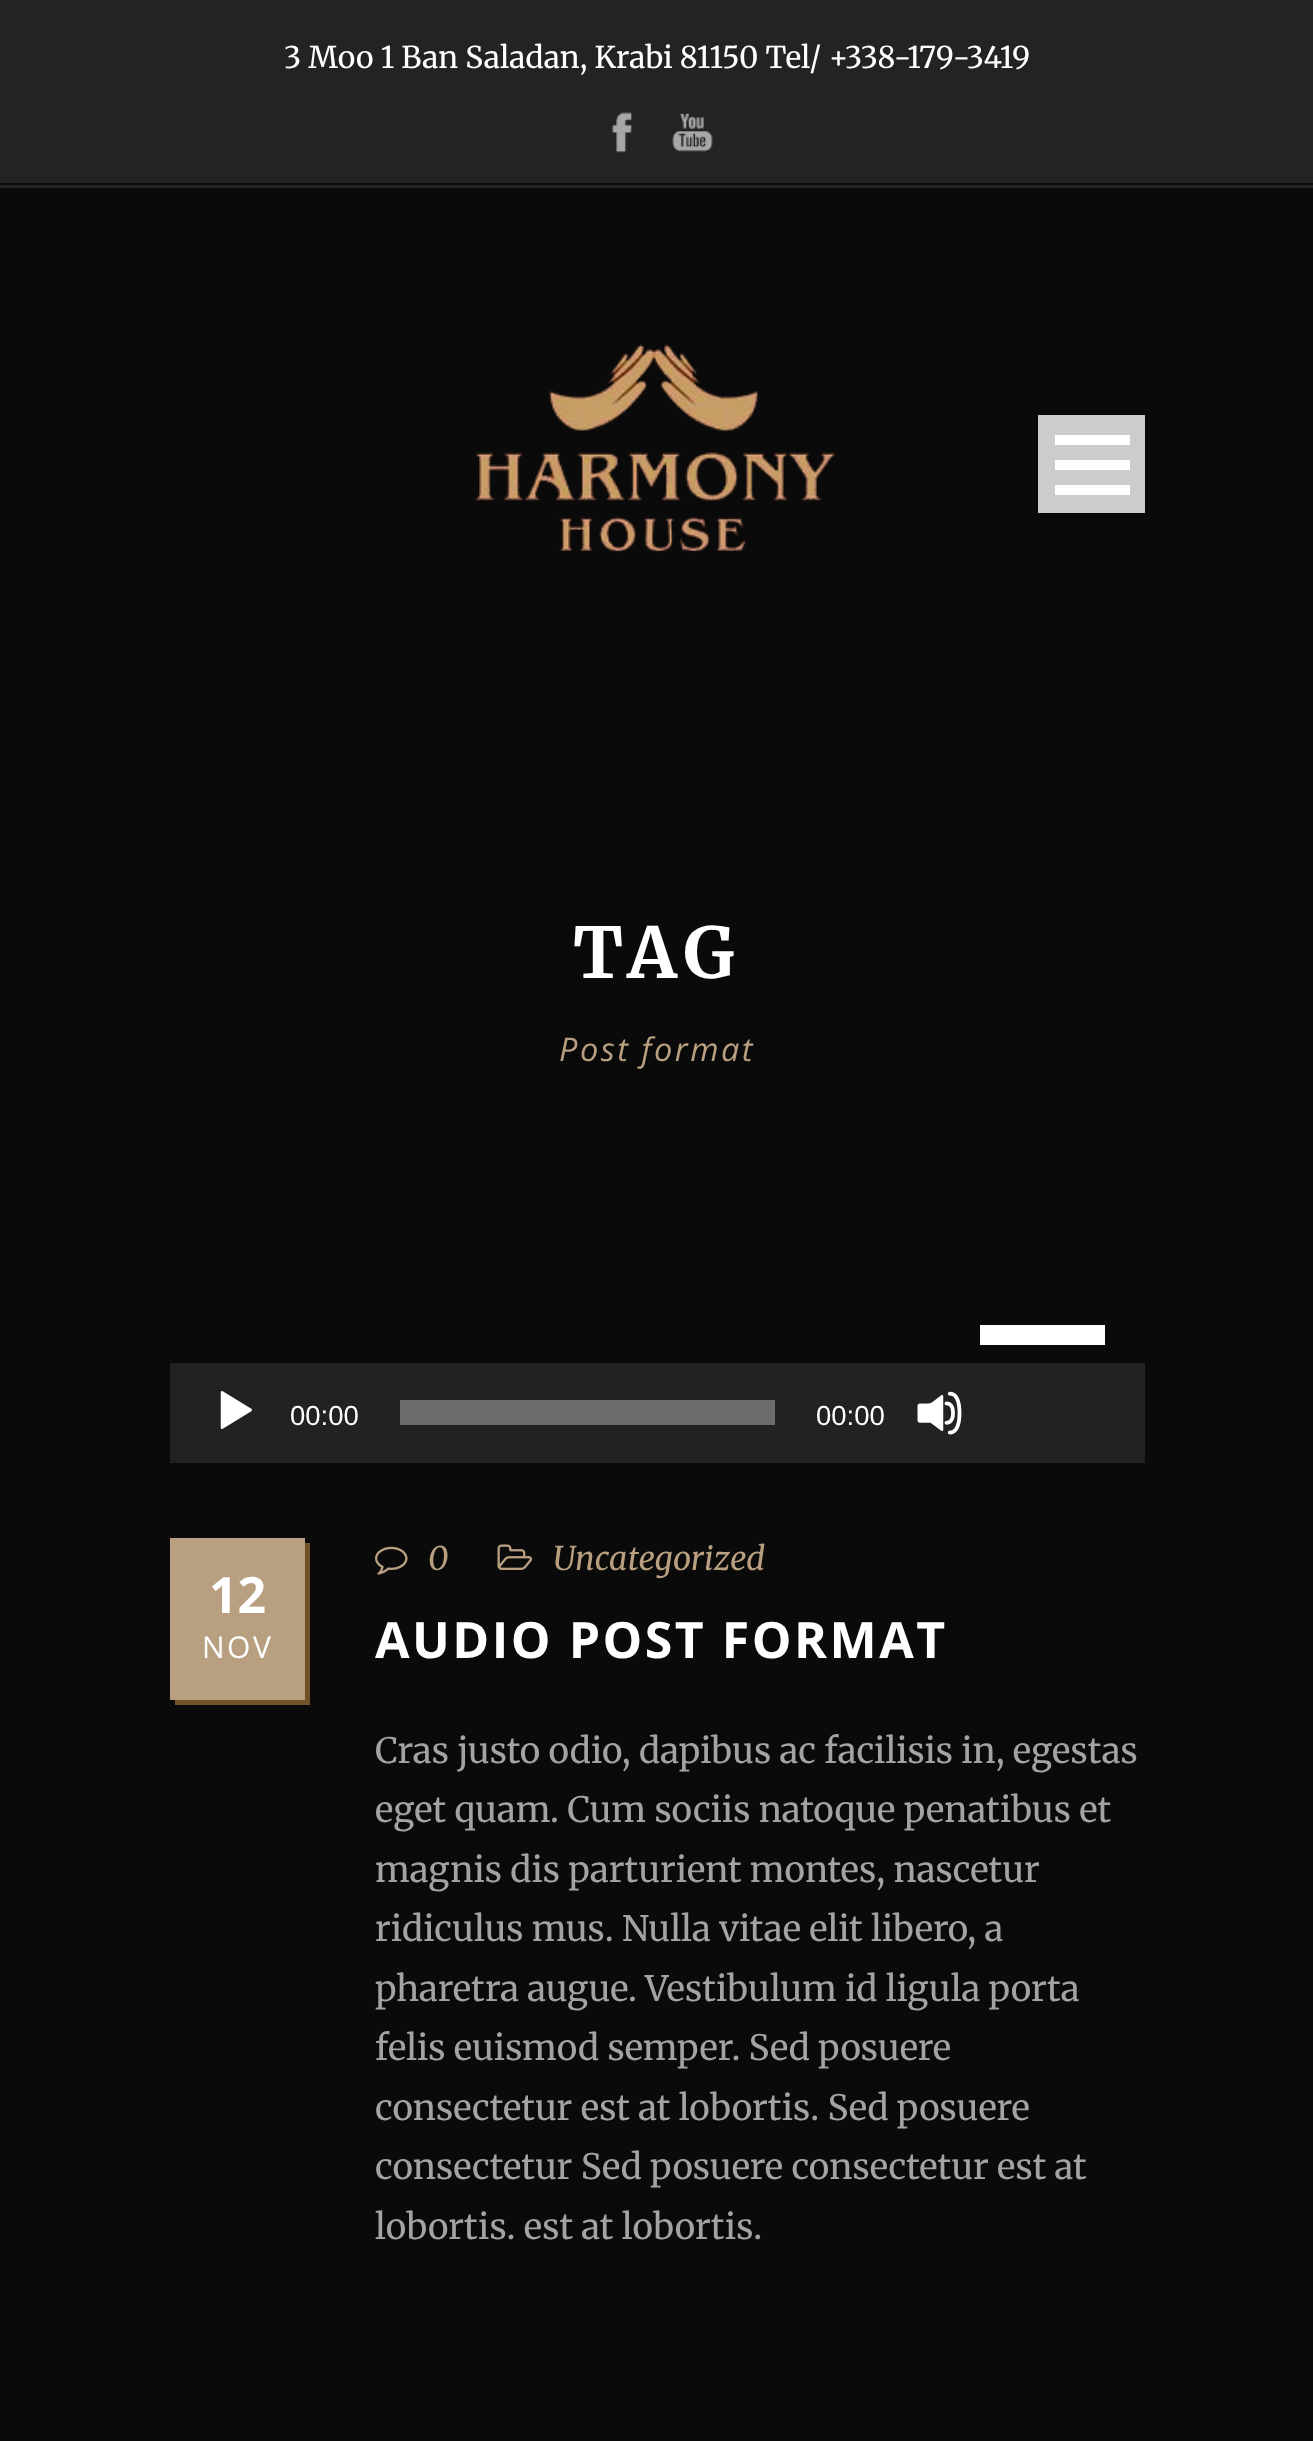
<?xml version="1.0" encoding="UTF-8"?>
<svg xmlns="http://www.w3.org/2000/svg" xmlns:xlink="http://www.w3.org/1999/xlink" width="1313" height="2441">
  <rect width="100%" height="100%" fill="#0a0a0a" />
  <rect width="1313" height="183" fill="#232323" />
  <image x="612" y="112" width="20" height="41" xlink:href="image1.png" />
  <image x="672" y="113" width="41" height="39" xlink:href="image2.png" />
  <rect y="185" width="1313" height="3" fill="#232323" />
  <image x="475" y="344" width="361" height="209" xlink:href="image3.png" />
  <rect x="1038" y="415" width="107" height="98" fill="#cccccc" />
  <rect x="1055" y="485" width="75" height="10" fill="#ffffff" />
  <rect x="1055" y="460" width="75" height="10" fill="#ffffff" />
  <rect x="1055" y="435" width="75" height="10" fill="#ffffff" />
  <rect x="170" y="1363" width="975" height="100" fill="#222222" />
  <rect x="980" y="1325" width="125" height="20" fill="#ffffff" />
  <image x="220" y="1391" width="32" height="39" xlink:href="image4.png" />
  <rect x="400" y="1400" width="375" height="25" fill="#6b6b6b" />
  <image x="917" y="1391" width="45" height="44" xlink:href="image5.png" />
  <path d="M 175 1700 v 5 h 135 v -162 h -5 v 157 z" fill="#725229" />
  <rect x="170" y="1538" width="135" height="162" fill="#b89f80" />
  <image x="375" y="1546" width="33" height="29" xlink:href="image6.png" />
  <image x="497" y="1544" width="36" height="26" xlink:href="image7.png" />
  <text x="284" y="68" style="font-family: Merriweather; font-size: 30px; fill: #ffffff">3 Moo 1 Ban Saladan, Krabi 81150 Tel/ +338-179-3419</text>
  <text x="573" y="978" style="font-family: Merriweather; font-size: 70px; font-weight: bold; letter-spacing: 7.5px; fill: #ffffff">TAG</text>
  <text x="559" y="1061" style="font-family: Open Sans; font-size: 32.5px; font-style: italic; letter-spacing: 2.5px; fill: #b89f80">Post format</text>
  <text x="290" y="1425" style="font-family: Liberation Sans; font-size: 27.5px; fill: #ffffff">00:00</text>
  <text x="816" y="1425" style="font-family: Liberation Sans; font-size: 27.5px; fill: #ffffff">00:00</text>
  <text x="209" y="1613" style="font-family: Open Sans; font-size: 50px; font-weight: bold; fill: #ffffff">12</text>
  <text x="202" y="1658" style="font-family: Open Sans; font-size: 30px; letter-spacing: 2.5px; fill: #ffffff">NOV</text>
  <text x="428" y="1570" style="font-family: Merriweather; font-size: 32.5px; font-style: italic; fill: #b89f80">0</text>
  <text x="553" y="1570" style="font-family: Merriweather; font-size: 32.5px; font-style: italic; fill: #b89f80">Uncategorized</text>
  <text x="375" y="1658" style="font-family: Open Sans; font-size: 50px; font-weight: bold; letter-spacing: 2.5px; fill: #ffffff">AUDIO POST FORMAT</text>
  <text x="375" y="1763" style="font-family: Merriweather; font-size: 35px; fill: #a3a3a3">Cras justo odio, dapibus ac facilisis in, egestas</text>
  <text x="375" y="1822" style="font-family: Merriweather; font-size: 35px; fill: #a3a3a3">eget quam. Cum sociis natoque penatibus et</text>
  <text x="375" y="1882" style="font-family: Merriweather; font-size: 35px; fill: #a3a3a3">magnis dis parturient montes, nascetur</text>
  <text x="375" y="1941" style="font-family: Merriweather; font-size: 35px; fill: #a3a3a3">ridiculus mus. Nulla vitae elit libero, a</text>
  <text x="375" y="2001" style="font-family: Merriweather; font-size: 35px; fill: #a3a3a3">pharetra augue. Vestibulum id ligula porta</text>
  <text x="375" y="2060" style="font-family: Merriweather; font-size: 35px; fill: #a3a3a3">felis euismod semper. Sed posuere</text>
  <text x="375" y="2120" style="font-family: Merriweather; font-size: 35px; fill: #a3a3a3">consectetur est at lobortis. Sed posuere</text>
  <text x="375" y="2179" style="font-family: Merriweather; font-size: 35px; fill: #a3a3a3">consectetur Sed posuere consectetur est at</text>
  <text x="375" y="2239" style="font-family: Merriweather; font-size: 35px; fill: #a3a3a3">lobortis. est at lobortis.</text>
</svg>
